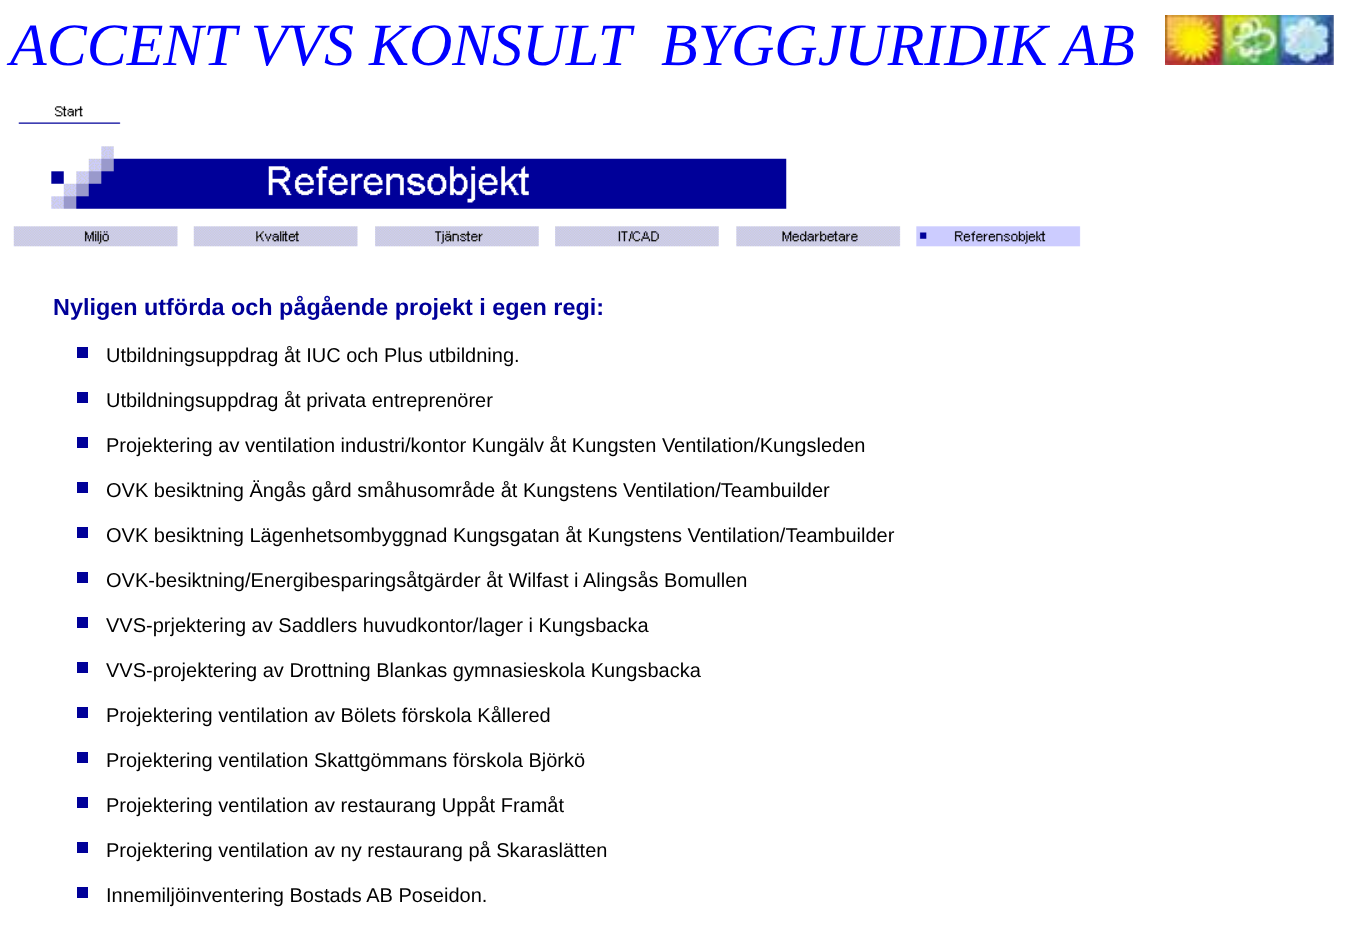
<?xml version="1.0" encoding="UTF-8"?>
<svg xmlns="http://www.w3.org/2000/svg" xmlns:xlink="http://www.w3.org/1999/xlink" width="1349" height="932">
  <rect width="100%" height="100%" fill="#ffffff" />
  <image x="1165" y="15" width="169" height="50" xlink:href="image1.png" />
  <image x="18" y="106" width="103" height="18" xlink:href="image2.png" />
  <image x="51" y="146" width="736" height="63" xlink:href="image3.png" />
  <image x="13" y="226" width="165" height="21" xlink:href="image4.png" />
  <image x="193" y="226" width="165" height="21" xlink:href="image5.png" />
  <image x="375" y="226" width="164" height="21" xlink:href="image6.png" />
  <image x="555" y="226" width="164" height="21" xlink:href="image7.png" />
  <image x="736" y="226" width="165" height="21" xlink:href="image8.png" />
  <image x="916" y="226" width="165" height="21" xlink:href="image9.png" />
  <rect x="77" y="347" width="11" height="11" fill="#000099" />
  <rect x="77" y="392" width="11" height="11" fill="#000099" />
  <rect x="77" y="437" width="11" height="11" fill="#000099" />
  <rect x="77" y="482" width="11" height="11" fill="#000099" />
  <rect x="77" y="527" width="11" height="11" fill="#000099" />
  <rect x="77" y="572" width="11" height="11" fill="#000099" />
  <rect x="77" y="617" width="11" height="11" fill="#000099" />
  <rect x="77" y="662" width="11" height="11" fill="#000099" />
  <rect x="77" y="707" width="11" height="11" fill="#000099" />
  <rect x="77" y="752" width="11" height="11" fill="#000099" />
  <rect x="77" y="797" width="11" height="11" fill="#000099" />
  <rect x="77" y="842" width="11" height="11" fill="#000099" />
  <rect x="77" y="887" width="11" height="11" fill="#000099" />
  <text x="10" y="65" style="font-family: Liberation Serif; font-size: 60px; font-style: italic; fill: #0000ff">ACCENT VVS KONSULT</text>
  <text x="661" y="65" style="font-family: Liberation Serif; font-size: 60px; font-style: italic; fill: #0000ff">BYGGJURIDIK AB</text>
  <text x="53" y="315" style="font-family: Liberation Sans; font-size: 23.4px; font-weight: bold; fill: #000099">Nyligen utförda och pågående projekt i egen regi:</text>
  <text x="106" y="362" style="font-family: Liberation Sans; font-size: 20px; fill: #000000">Utbildningsuppdrag åt IUC och Plus utbildning.</text>
  <text x="106" y="407" style="font-family: Liberation Sans; font-size: 20px; fill: #000000">Utbildningsuppdrag åt privata entreprenörer</text>
  <text x="106" y="452" style="font-family: Liberation Sans; font-size: 20px; fill: #000000">Projektering av ventilation industri/kontor Kungälv åt Kungsten Ventilation/Kungsleden</text>
  <text x="106" y="497" style="font-family: Liberation Sans; font-size: 20px; fill: #000000">OVK besiktning Ängås gård småhusområde åt Kungstens Ventilation/Teambuilder</text>
  <text x="106" y="542" style="font-family: Liberation Sans; font-size: 20px; fill: #000000">OVK besiktning Lägenhetsombyggnad Kungsgatan åt Kungstens Ventilation/Teambuilder</text>
  <text x="106" y="587" style="font-family: Liberation Sans; font-size: 20px; fill: #000000">OVK-besiktning/Energibesparingsåtgärder åt Wilfast i Alingsås Bomullen</text>
  <text x="106" y="632" style="font-family: Liberation Sans; font-size: 20px; fill: #000000">VVS-prjektering av Saddlers huvudkontor/lager i Kungsbacka</text>
  <text x="106" y="677" style="font-family: Liberation Sans; font-size: 20px; fill: #000000">VVS-projektering av Drottning Blankas gymnasieskola Kungsbacka</text>
  <text x="106" y="722" style="font-family: Liberation Sans; font-size: 20px; fill: #000000">Projektering ventilation av Bölets förskola Kållered</text>
  <text x="106" y="767" style="font-family: Liberation Sans; font-size: 20px; fill: #000000">Projektering ventilation Skattgömmans förskola Björkö</text>
  <text x="106" y="812" style="font-family: Liberation Sans; font-size: 20px; fill: #000000">Projektering ventilation av restaurang Uppåt Framåt</text>
  <text x="106" y="857" style="font-family: Liberation Sans; font-size: 20px; fill: #000000">Projektering ventilation av ny restaurang på Skaraslätten</text>
  <text x="106" y="902" style="font-family: Liberation Sans; font-size: 20px; fill: #000000">Innemiljöinventering Bostads AB Poseidon.</text>
</svg>
